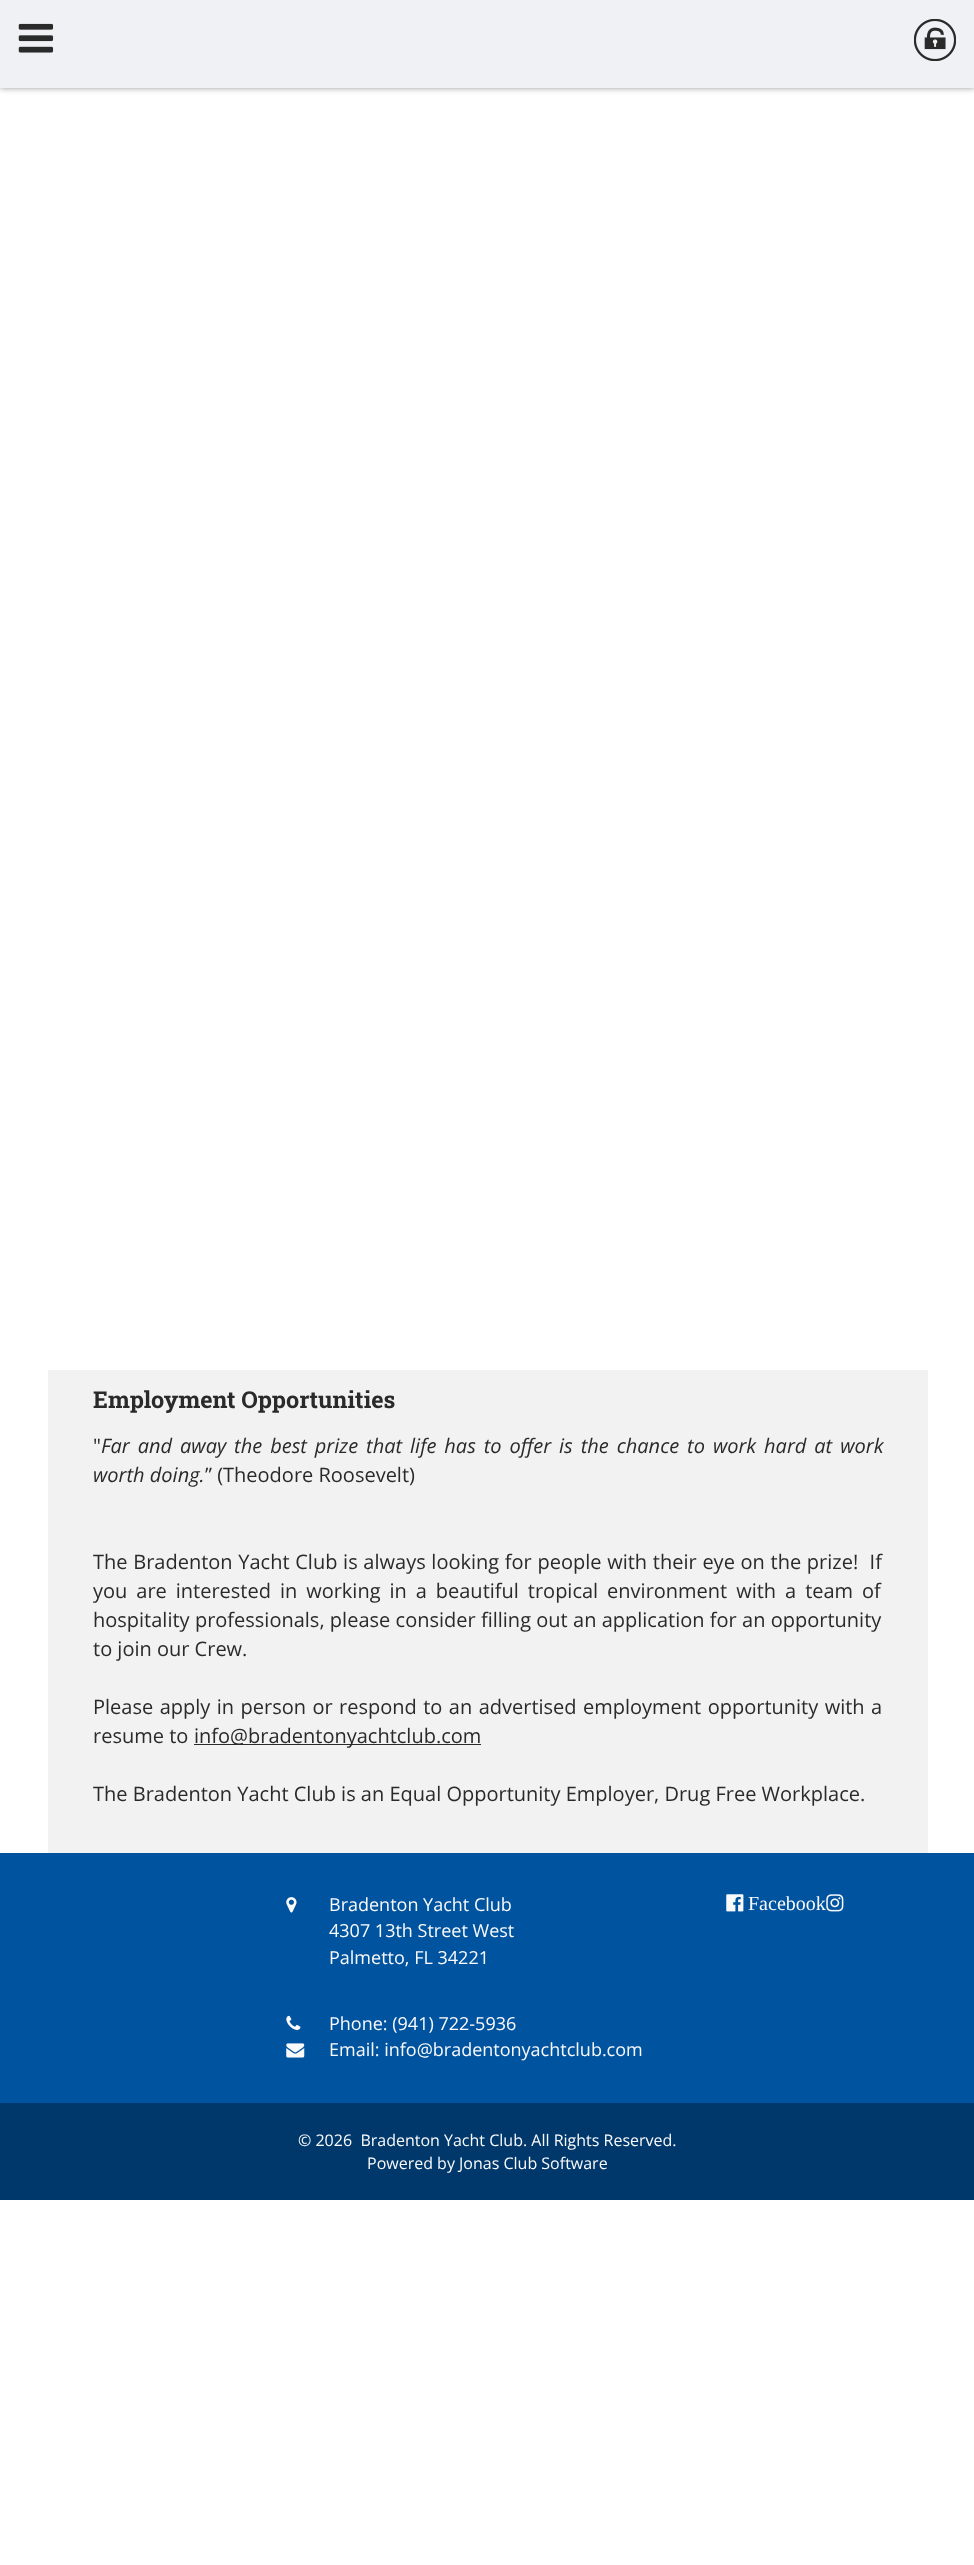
<?xml version="1.0" encoding="UTF-8"?>
<svg xmlns="http://www.w3.org/2000/svg" xmlns:xlink="http://www.w3.org/1999/xlink" width="974" height="2565">
  <rect width="100%" height="100%" fill="#ffffff" />
  <rect width="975" height="88" fill="#000000" fill-opacity="0.4" filter="blur(3px)" />
  <rect width="974" height="88" fill="#f0f1f5" />
  <image x="18" y="23" width="36" height="30" xlink:href="image1.png" />
  <image x="914" y="19" width="42" height="42" xlink:href="image2.png" />
  <rect x="48" y="1370" width="880" height="483" fill="#f2f2f2" />
  <rect x="194" y="1744" width="287" height="1" fill="#2a2a2a" />
  <rect y="1853" width="974" height="250" fill="#00539f" />
  <image x="286" y="1897" width="11" height="16" xlink:href="image3.png" />
  <image x="286" y="2015" width="15" height="15" xlink:href="image4.png" />
  <image x="286" y="2043" width="19" height="15" xlink:href="image5.png" />
  <image x="726" y="1894" width="18" height="18" xlink:href="image6.png" />
  <image x="826" y="1894" width="18" height="18" xlink:href="image7.png" />
  <rect y="2103" width="974" height="97" fill="#00386c" />
  <text x="93" y="1408" style="font-family: Roboto Slab; font-size: 23.4px; font-weight: bold; fill: #2a2a2a">Employment Opportunities</text>
  <text x="93" y="1453" style="font-family: Open Sans; font-size: 20px; fill: #2a2a2a">"</text>
  <text x="101" y="1453" word-spacing="2.75" style="font-family: Open Sans; font-size: 20px; font-style: italic; fill: #2a2a2a">Far and away the best prize that life has to offer is the chance to work hard at work</text>
  <text x="93" y="1482" style="font-family: Open Sans; font-size: 20px; font-style: italic; fill: #2a2a2a">worth doing.</text>
  <text x="205" y="1482" style="font-family: Open Sans; font-size: 20px; fill: #2a2a2a">” (Theodore Roosevelt)</text>
  <text x="93" y="1569" word-spacing="0.5" style="font-family: Open Sans; font-size: 20px; fill: #2a2a2a" xml:space="preserve">The Bradenton Yacht Club is always looking for people with their eye on the prize!  If</text>
  <text x="93" y="1598" word-spacing="3.75" style="font-family: Open Sans; font-size: 20px; fill: #2a2a2a">you are interested in working in a beautiful tropical environment with a team of</text>
  <text x="93" y="1627" word-spacing="0.1" style="font-family: Open Sans; font-size: 20px; fill: #2a2a2a">hospitality professionals, please consider filling out an application for an opportunity</text>
  <text x="93" y="1656" style="font-family: Open Sans; font-size: 20px; fill: #2a2a2a">to join our Crew.</text>
  <text x="93" y="1714" word-spacing="1.25" style="font-family: Open Sans; font-size: 20px; fill: #2a2a2a">Please apply in person or respond to an advertised employment opportunity with a</text>
  <text x="93" y="1743" style="font-family: Open Sans; font-size: 20px; fill: #2a2a2a">resume to</text>
  <text x="194" y="1743" style="font-family: Open Sans; font-size: 20px; fill: #2a2a2a">info@bradentonyachtclub.com</text>
  <text x="93" y="1801" style="font-family: Open Sans; font-size: 20px; fill: #2a2a2a">The Bradenton Yacht Club is an Equal Opportunity Employer, Drug Free Workplace.</text>
  <text x="329" y="1911" style="font-family: Open Sans; font-size: 18px; fill: #fafafa">Bradenton Yacht Club</text>
  <text x="329" y="1937" style="font-family: Open Sans; font-size: 18px; fill: #fafafa">4307 13th Street West</text>
  <text x="329" y="1964" style="font-family: Open Sans; font-size: 18px; fill: #fafafa">Palmetto, FL 34221</text>
  <text x="329" y="2030" style="font-family: Open Sans; font-size: 18px; fill: #fafafa">Phone: (941) 722-5936</text>
  <text x="329" y="2056" style="font-family: Open Sans; font-size: 18px; fill: #fafafa">Email: info@bradentonyachtclub.com</text>
  <text x="748" y="1910" style="font-family: Liberation Serif; font-size: 20px; fill: #fafafa">Facebook</text>
  <text x="298" y="2146" style="font-family: Open Sans; font-size: 16px; fill: #fafafa" xml:space="preserve">© 2026  Bradenton Yacht Club. All Rights Reserved.</text>
  <text x="367" y="2169" style="font-family: Open Sans; font-size: 16px; fill: #fafafa">Powered by Jonas Club Software</text>
</svg>
